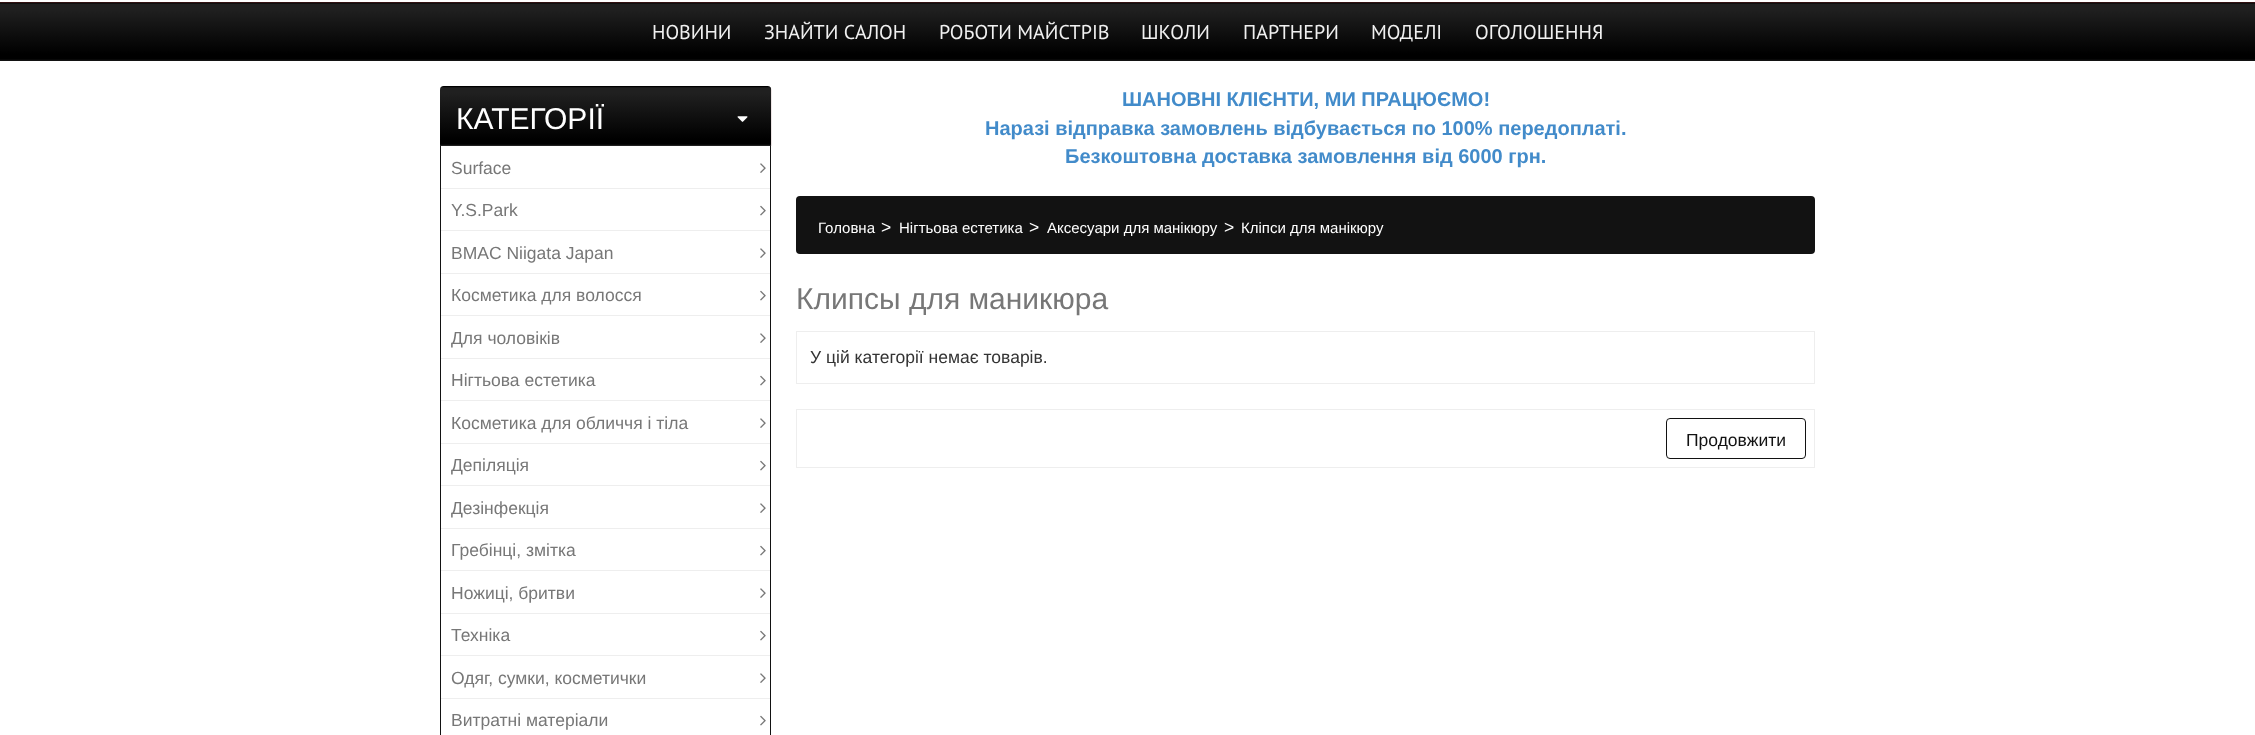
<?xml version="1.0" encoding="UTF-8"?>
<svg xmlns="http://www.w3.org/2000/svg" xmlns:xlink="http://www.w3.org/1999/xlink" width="2255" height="735">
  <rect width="100%" height="100%" fill="#ffffff" />
  <image x="0" y="2" width="2255" height="58" xlink:href="image1.png" />
  <rect y="60" width="2255" height="1" fill="#121212" />
  <image x="440" y="86" width="332" height="60" xlink:href="image2.png" />
  <image x="737" y="116" width="11" height="6" xlink:href="image3.png" />
  <path d="M 440 146 h 331 v 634 c 0 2 -1 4 -3 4 h -324 c -2 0 -4 -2 -4 -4 z m 1 0 h 329 v 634 c 0 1 -1 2 -2 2 h -324 c -2 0 -3 -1 -3 -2 z" fill="#121212" fill-rule="evenodd" />
  <rect x="441" y="188" width="329" height="1" fill="#eeeeee" />
  <image x="760" y="163" width="6" height="10" xlink:href="image4.png" />
  <rect x="441" y="230" width="329" height="1" fill="#eeeeee" />
  <image x="760" y="205" width="6" height="11" xlink:href="image5.png" />
  <rect x="441" y="273" width="329" height="1" fill="#eeeeee" />
  <image x="760" y="248" width="6" height="10" xlink:href="image4.png" />
  <rect x="441" y="315" width="329" height="1" fill="#eeeeee" />
  <image x="760" y="290" width="6" height="11" xlink:href="image5.png" />
  <rect x="441" y="358" width="329" height="1" fill="#eeeeee" />
  <image x="760" y="333" width="6" height="10" xlink:href="image4.png" />
  <rect x="441" y="400" width="329" height="1" fill="#eeeeee" />
  <image x="760" y="375" width="6" height="11" xlink:href="image5.png" />
  <rect x="441" y="443" width="329" height="1" fill="#eeeeee" />
  <image x="760" y="418" width="6" height="10" xlink:href="image4.png" />
  <rect x="441" y="485" width="329" height="1" fill="#eeeeee" />
  <image x="760" y="460" width="6" height="11" xlink:href="image5.png" />
  <rect x="441" y="528" width="329" height="1" fill="#eeeeee" />
  <image x="760" y="503" width="6" height="10" xlink:href="image4.png" />
  <rect x="441" y="570" width="329" height="1" fill="#eeeeee" />
  <image x="760" y="545" width="6" height="11" xlink:href="image5.png" />
  <rect x="441" y="613" width="329" height="1" fill="#eeeeee" />
  <image x="760" y="588" width="6" height="10" xlink:href="image4.png" />
  <rect x="441" y="655" width="329" height="1" fill="#eeeeee" />
  <image x="760" y="630" width="6" height="11" xlink:href="image5.png" />
  <rect x="441" y="698" width="329" height="1" fill="#eeeeee" />
  <image x="760" y="673" width="6" height="10" xlink:href="image4.png" />
  <image x="760" y="715" width="6" height="11" xlink:href="image5.png" />
  <rect x="796" y="196" width="1019" height="58" rx="4" fill="#121212" />
  <rect x="796.5" y="331.5" width="1018" height="52" fill="none" stroke="#eeeeee" />
  <rect x="796.5" y="409.5" width="1018" height="58" fill="none" stroke="#eeeeee" />
  <rect x="1666.5" y="418.5" width="139" height="40" rx="3.5" fill="none" stroke="#121212" />
  <text x="652" y="39" style="font-family: PT Sans; font-size: 20px; fill: #f0f0f0">НОВИНИ</text>
  <text x="764" y="39" style="font-family: PT Sans; font-size: 20px; fill: #f0f0f0">ЗНАЙТИ CАЛОН</text>
  <text x="939" y="39" style="font-family: PT Sans; font-size: 20px; fill: #f0f0f0">РОБОТИ МАЙСТРІВ</text>
  <text x="1141" y="39" style="font-family: PT Sans; font-size: 20px; fill: #f0f0f0">ШКОЛИ</text>
  <text x="1243" y="39" style="font-family: PT Sans; font-size: 20px; fill: #f0f0f0">ПАРТНЕРИ</text>
  <text x="1371" y="39" style="font-family: PT Sans; font-size: 20px; fill: #f0f0f0">МОДЕЛІ</text>
  <text x="1475" y="39" style="font-family: PT Sans; font-size: 20px; fill: #f0f0f0">ОГОЛОШЕННЯ</text>
  <text x="456" y="129" style="font-family: Liberation Sans; font-size: 30px; fill: #ffffff">КАТЕГОРІЇ</text>
  <text x="451" y="174" style="font-family: Liberation Sans; font-size: 17.5px; fill: #777777">Surface</text>
  <text x="451" y="216" style="font-family: Liberation Sans; font-size: 17.5px; fill: #777777">Y.S.Park</text>
  <text x="451" y="259" style="font-family: Liberation Sans; font-size: 17.5px; fill: #777777">BMAC Niigata Japan</text>
  <text x="451" y="301" style="font-family: Liberation Sans; font-size: 17.5px; fill: #777777">Косметика для волосся</text>
  <text x="451" y="344" style="font-family: Liberation Sans; font-size: 17.5px; fill: #777777">Для чоловіків</text>
  <text x="451" y="386" style="font-family: Liberation Sans; font-size: 17.5px; fill: #777777">Нігтьова естетика</text>
  <text x="451" y="429" style="font-family: Liberation Sans; font-size: 17.5px; fill: #777777">Косметика для обличчя і тіла</text>
  <text x="451" y="471" style="font-family: Liberation Sans; font-size: 17.5px; fill: #777777">Депіляція</text>
  <text x="451" y="514" style="font-family: Liberation Sans; font-size: 17.5px; fill: #777777">Дезінфекція</text>
  <text x="451" y="556" style="font-family: Liberation Sans; font-size: 17.5px; fill: #777777">Гребінці, змітка</text>
  <text x="451" y="599" style="font-family: Liberation Sans; font-size: 17.5px; fill: #777777">Ножиці, бритви</text>
  <text x="451" y="641" style="font-family: Liberation Sans; font-size: 17.5px; fill: #777777">Техніка</text>
  <text x="451" y="684" style="font-family: Liberation Sans; font-size: 17.5px; fill: #777777">Одяг, сумки, косметички</text>
  <text x="451" y="726" style="font-family: Liberation Sans; font-size: 17.5px; fill: #777777">Витратні матеріали</text>
  <text x="1122" y="106" style="font-family: Liberation Sans; font-size: 20px; font-weight: bold; fill: #428bca">ШАНОВНІ КЛІЄНТИ, МИ ПРАЦЮЄМО!</text>
  <text x="985" y="135" style="font-family: Liberation Sans; font-size: 20px; font-weight: bold; fill: #428bca">Наразі відправка замовлень відбувається по 100% передоплаті.</text>
  <text x="1065" y="163" style="font-family: Liberation Sans; font-size: 20px; font-weight: bold; fill: #428bca">Безкоштовна доставка замовлення від 6000 грн.</text>
  <text x="818" y="233" style="font-family: Liberation Sans; font-size: 15px; fill: #ffffff">Головна</text>
  <text x="881" y="233" style="font-family: Liberation Sans; font-size: 17.5px; fill: #ffffff">&gt;</text>
  <text x="899" y="233" style="font-family: Liberation Sans; font-size: 15px; fill: #ffffff">Нігтьова естетика</text>
  <text x="1029" y="233" style="font-family: Liberation Sans; font-size: 17.5px; fill: #ffffff">&gt;</text>
  <text x="1047" y="233" style="font-family: Liberation Sans; font-size: 15px; fill: #ffffff">Аксесуари для манікюру</text>
  <text x="1224" y="233" style="font-family: Liberation Sans; font-size: 17.5px; fill: #ffffff">&gt;</text>
  <text x="1241" y="233" style="font-family: Liberation Sans; font-size: 15px; fill: #ffffff">Кліпси для манікюру</text>
  <text x="796" y="309" style="font-family: Liberation Sans; font-size: 30px; fill: #777777">Клипсы для маникюра</text>
  <text x="810" y="363" style="font-family: Liberation Sans; font-size: 17.5px; fill: #333333">У цій категорії немає товарів.</text>
  <text x="1686" y="446" style="font-family: Liberation Sans; font-size: 17.5px; fill: #121212">Продовжити</text>
</svg>
